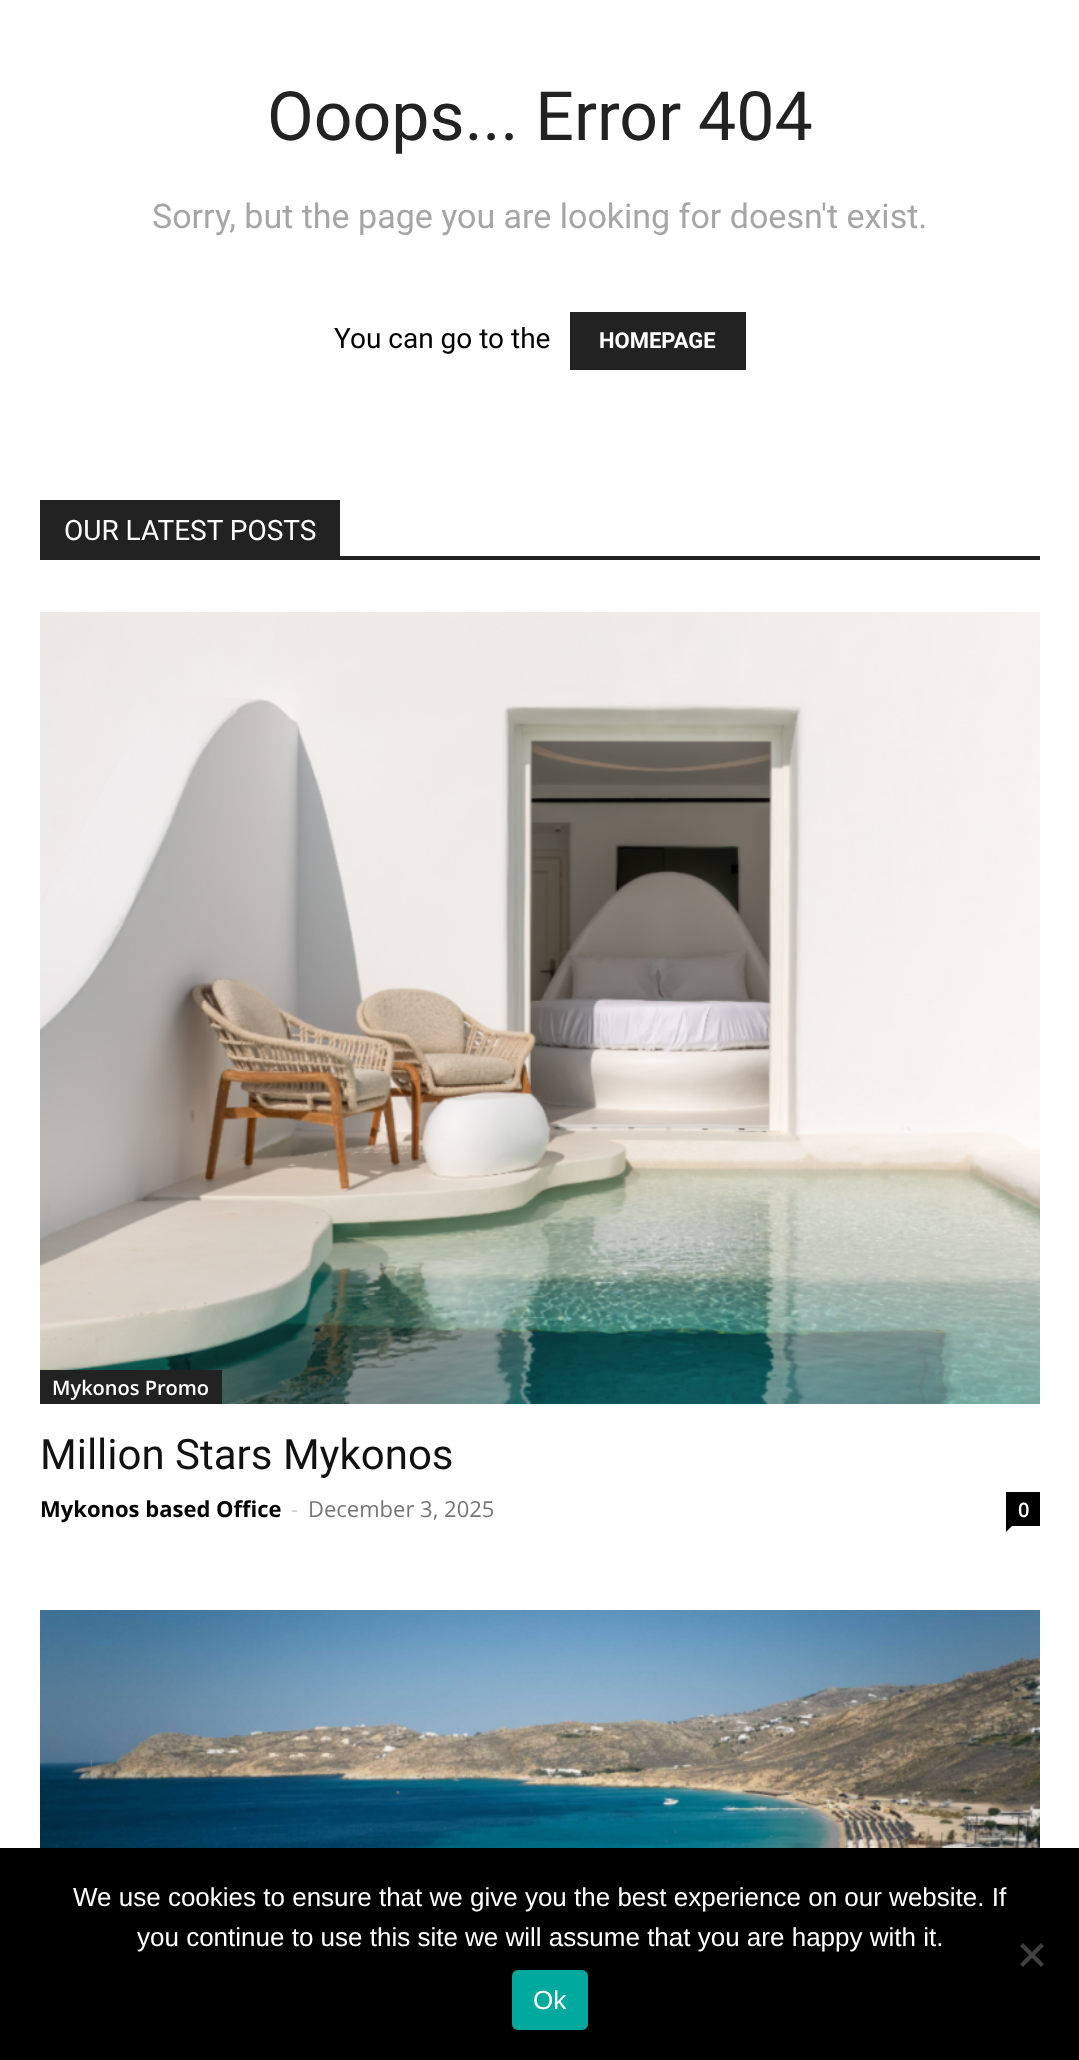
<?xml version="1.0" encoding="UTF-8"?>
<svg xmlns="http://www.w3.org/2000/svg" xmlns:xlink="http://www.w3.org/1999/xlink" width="1079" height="2060">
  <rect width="100%" height="100%" fill="#ffffff" />
  <rect x="570" y="312" width="176" height="58" fill="#222222" />
  <rect x="40" y="556" width="1000" height="4" fill="#222222" />
  <rect x="40" y="500" width="300" height="56" fill="#222222" />
  <image x="40" y="612" width="1000" height="792" xlink:href="image1.png" />
  <rect x="40" y="1370" width="182" height="34" fill="#222222" />
  <rect x="1006" y="1492" width="34" height="34" fill="#000000" />
  <path d="M 1006 1526 h 6 l -6 6 z" fill="#000000" />
  <image x="40" y="1610" width="1000" height="238" xlink:href="image2.png" />
  <rect y="1848" width="1079" height="212" fill="#000000" />
  <path d="M 1041 1943 l 3 3 l -21 21 l -3 -3 z" fill="#404040" />
  <path d="M 1020 1946 l 3 -3 l 21 21 l -3 3 z" fill="#404040" />
  <rect x="512" y="1970" width="76" height="60" rx="6" fill="#00a99d" />
  <text x="267" y="140" style="font-family: Roboto; font-size: 68px; fill: #222222">Ooops... Error 404</text>
  <text x="152" y="228" style="font-family: Roboto; font-size: 34px; fill: #a6a6a6">Sorry, but the page you are looking for doesn't exist.</text>
  <text x="334" y="348" style="font-family: Roboto; font-size: 28px; fill: #000000">You can go to the</text>
  <text x="599" y="348" style="font-family: Roboto; font-size: 22px; font-weight: bold; fill: #ffffff">HOMEPAGE</text>
  <text x="64" y="540" style="font-family: Roboto; font-size: 28px; fill: #ffffff">OUR LATEST POSTS</text>
  <text x="52" y="1395" style="font-family: Open Sans; font-size: 20px; font-weight: 600; fill: #ffffff">Mykonos Promo</text>
  <text x="40" y="1469" style="font-family: Roboto; font-size: 42px; fill: #111111">Million Stars Mykonos</text>
  <text x="40" y="1517" style="font-family: Open Sans; font-size: 22px; font-weight: bold; fill: #000000">Mykonos based Office</text>
  <text x="291" y="1517" style="font-family: Open Sans; font-size: 22px; fill: #cccccc">-</text>
  <text x="308" y="1517" style="font-family: Open Sans; font-size: 22px; fill: #767676">December 3, 2025</text>
  <text x="1018" y="1517" style="font-family: Open Sans; font-size: 20px; font-weight: 600; fill: #ffffff">0</text>
  <text x="73" y="1906" style="font-family: Liberation Sans; font-size: 26px; fill: #ffffff">We use cookies to ensure that we give you the best experience on our website. If</text>
  <text x="137" y="1946" style="font-family: Liberation Sans; font-size: 26px; fill: #ffffff">you continue to use this site we will assume that you are happy with it.</text>
  <text x="533" y="2009" style="font-family: Liberation Sans; font-size: 26px; fill: #ffffff">Ok</text>
</svg>
